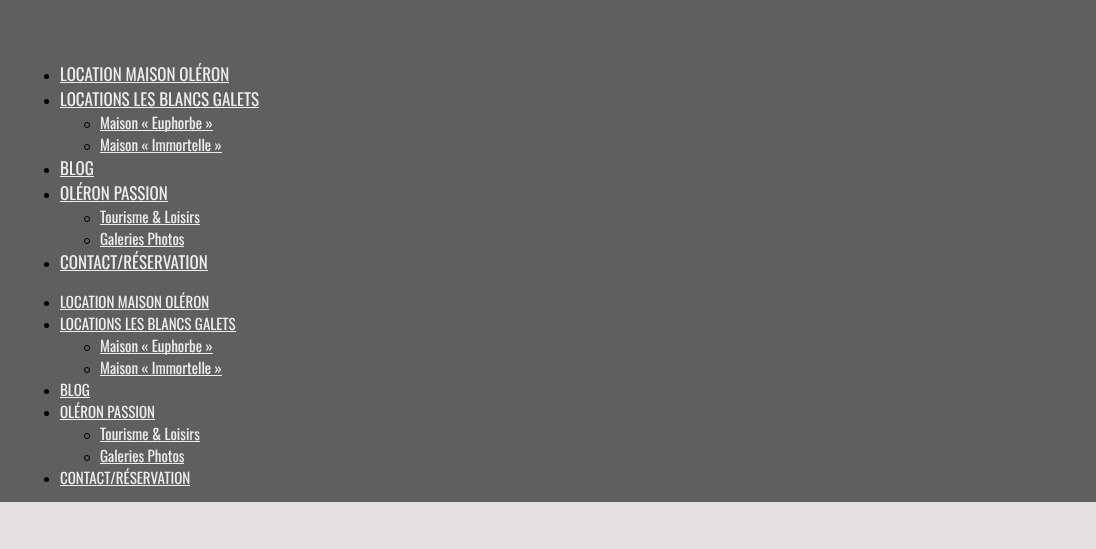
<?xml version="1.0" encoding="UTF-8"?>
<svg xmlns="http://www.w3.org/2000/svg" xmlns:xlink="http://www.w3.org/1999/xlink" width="1096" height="549">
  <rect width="100%" height="100%" fill="#e2e0e0" />
  <rect width="1096" height="502" fill="#5f5f5f" />
  <circle cx="46.5" cy="76.5" r="2.5" fill="#000000" />
  <rect x="60" y="82" width="169" height="1" fill="#ededed" />
  <circle cx="46.5" cy="101.5" r="2.5" fill="#000000" />
  <rect x="60" y="107" width="199" height="1" fill="#ededed" />
  <circle cx="87" cy="125" r="2.5" fill="none" stroke="#000000" />
  <rect x="100" y="130" width="113" height="1" fill="#ededed" />
  <circle cx="87" cy="147" r="2.5" fill="none" stroke="#000000" />
  <rect x="100" y="152" width="122" height="1" fill="#ededed" />
  <circle cx="46.5" cy="170.5" r="2.5" fill="#000000" />
  <rect x="60" y="176" width="34" height="1" fill="#ededed" />
  <circle cx="46.5" cy="195.5" r="2.5" fill="#000000" />
  <rect x="60" y="201" width="108" height="1" fill="#ededed" />
  <circle cx="87" cy="219" r="2.5" fill="none" stroke="#000000" />
  <rect x="100" y="224" width="100" height="1" fill="#ededed" />
  <circle cx="87" cy="241" r="2.5" fill="none" stroke="#000000" />
  <rect x="100" y="246" width="84" height="1" fill="#ededed" />
  <circle cx="46.5" cy="264.5" r="2.5" fill="#000000" />
  <rect x="60" y="270" width="148" height="1" fill="#ededed" />
  <circle cx="46.5" cy="303.5" r="2.5" fill="#000000" />
  <rect x="60" y="309" width="149" height="1" fill="#ededed" />
  <circle cx="46.5" cy="325.5" r="2.5" fill="#000000" />
  <rect x="60" y="331" width="176" height="1" fill="#ededed" />
  <circle cx="87" cy="348" r="2.5" fill="none" stroke="#000000" />
  <rect x="100" y="353" width="113" height="1" fill="#ededed" />
  <circle cx="87" cy="370" r="2.5" fill="none" stroke="#000000" />
  <rect x="100" y="375" width="122" height="1" fill="#ededed" />
  <circle cx="46.5" cy="391.5" r="2.5" fill="#000000" />
  <rect x="60" y="397" width="30" height="1" fill="#ededed" />
  <circle cx="46.5" cy="413.5" r="2.5" fill="#000000" />
  <rect x="60" y="419" width="95" height="1" fill="#ededed" />
  <circle cx="87" cy="436" r="2.5" fill="none" stroke="#000000" />
  <rect x="100" y="441" width="100" height="1" fill="#ededed" />
  <circle cx="87" cy="458" r="2.5" fill="none" stroke="#000000" />
  <rect x="100" y="463" width="84" height="1" fill="#ededed" />
  <circle cx="46.5" cy="479.5" r="2.5" fill="#000000" />
  <rect x="60" y="485" width="130" height="1" fill="#ededed" />
  <text x="60" y="81" style="font-family: Oswald; font-size: 17px; fill: #ededed">LOCATION MAISON OLÉRON</text>
  <text x="60" y="106" style="font-family: Oswald; font-size: 17px; fill: #ededed">LOCATIONS LES BLANCS GALETS</text>
  <text x="100" y="129" style="font-family: Oswald; font-size: 15px; fill: #ededed">Maison « Euphorbe »</text>
  <text x="100" y="151" style="font-family: Oswald; font-size: 15px; fill: #ededed">Maison « Immortelle »</text>
  <text x="60" y="175" style="font-family: Oswald; font-size: 17px; fill: #ededed">BLOG</text>
  <text x="60" y="200" style="font-family: Oswald; font-size: 17px; fill: #ededed">OLÉRON PASSION</text>
  <text x="100" y="223" style="font-family: Oswald; font-size: 15px; fill: #ededed">Tourisme &amp; Loisirs</text>
  <text x="100" y="245" style="font-family: Oswald; font-size: 15px; fill: #ededed">Galeries Photos</text>
  <text x="60" y="269" style="font-family: Oswald; font-size: 17px; fill: #ededed">CONTACT/RÉSERVATION</text>
  <text x="60" y="308" style="font-family: Oswald; font-size: 15px; fill: #ededed">LOCATION MAISON OLÉRON</text>
  <text x="60" y="330" style="font-family: Oswald; font-size: 15px; fill: #ededed">LOCATIONS LES BLANCS GALETS</text>
  <text x="100" y="352" style="font-family: Oswald; font-size: 15px; fill: #ededed">Maison « Euphorbe »</text>
  <text x="100" y="374" style="font-family: Oswald; font-size: 15px; fill: #ededed">Maison « Immortelle »</text>
  <text x="60" y="396" style="font-family: Oswald; font-size: 15px; fill: #ededed">BLOG</text>
  <text x="60" y="418" style="font-family: Oswald; font-size: 15px; fill: #ededed">OLÉRON PASSION</text>
  <text x="100" y="440" style="font-family: Oswald; font-size: 15px; fill: #ededed">Tourisme &amp; Loisirs</text>
  <text x="100" y="462" style="font-family: Oswald; font-size: 15px; fill: #ededed">Galeries Photos</text>
  <text x="60" y="484" style="font-family: Oswald; font-size: 15px; fill: #ededed">CONTACT/RÉSERVATION</text>
</svg>
